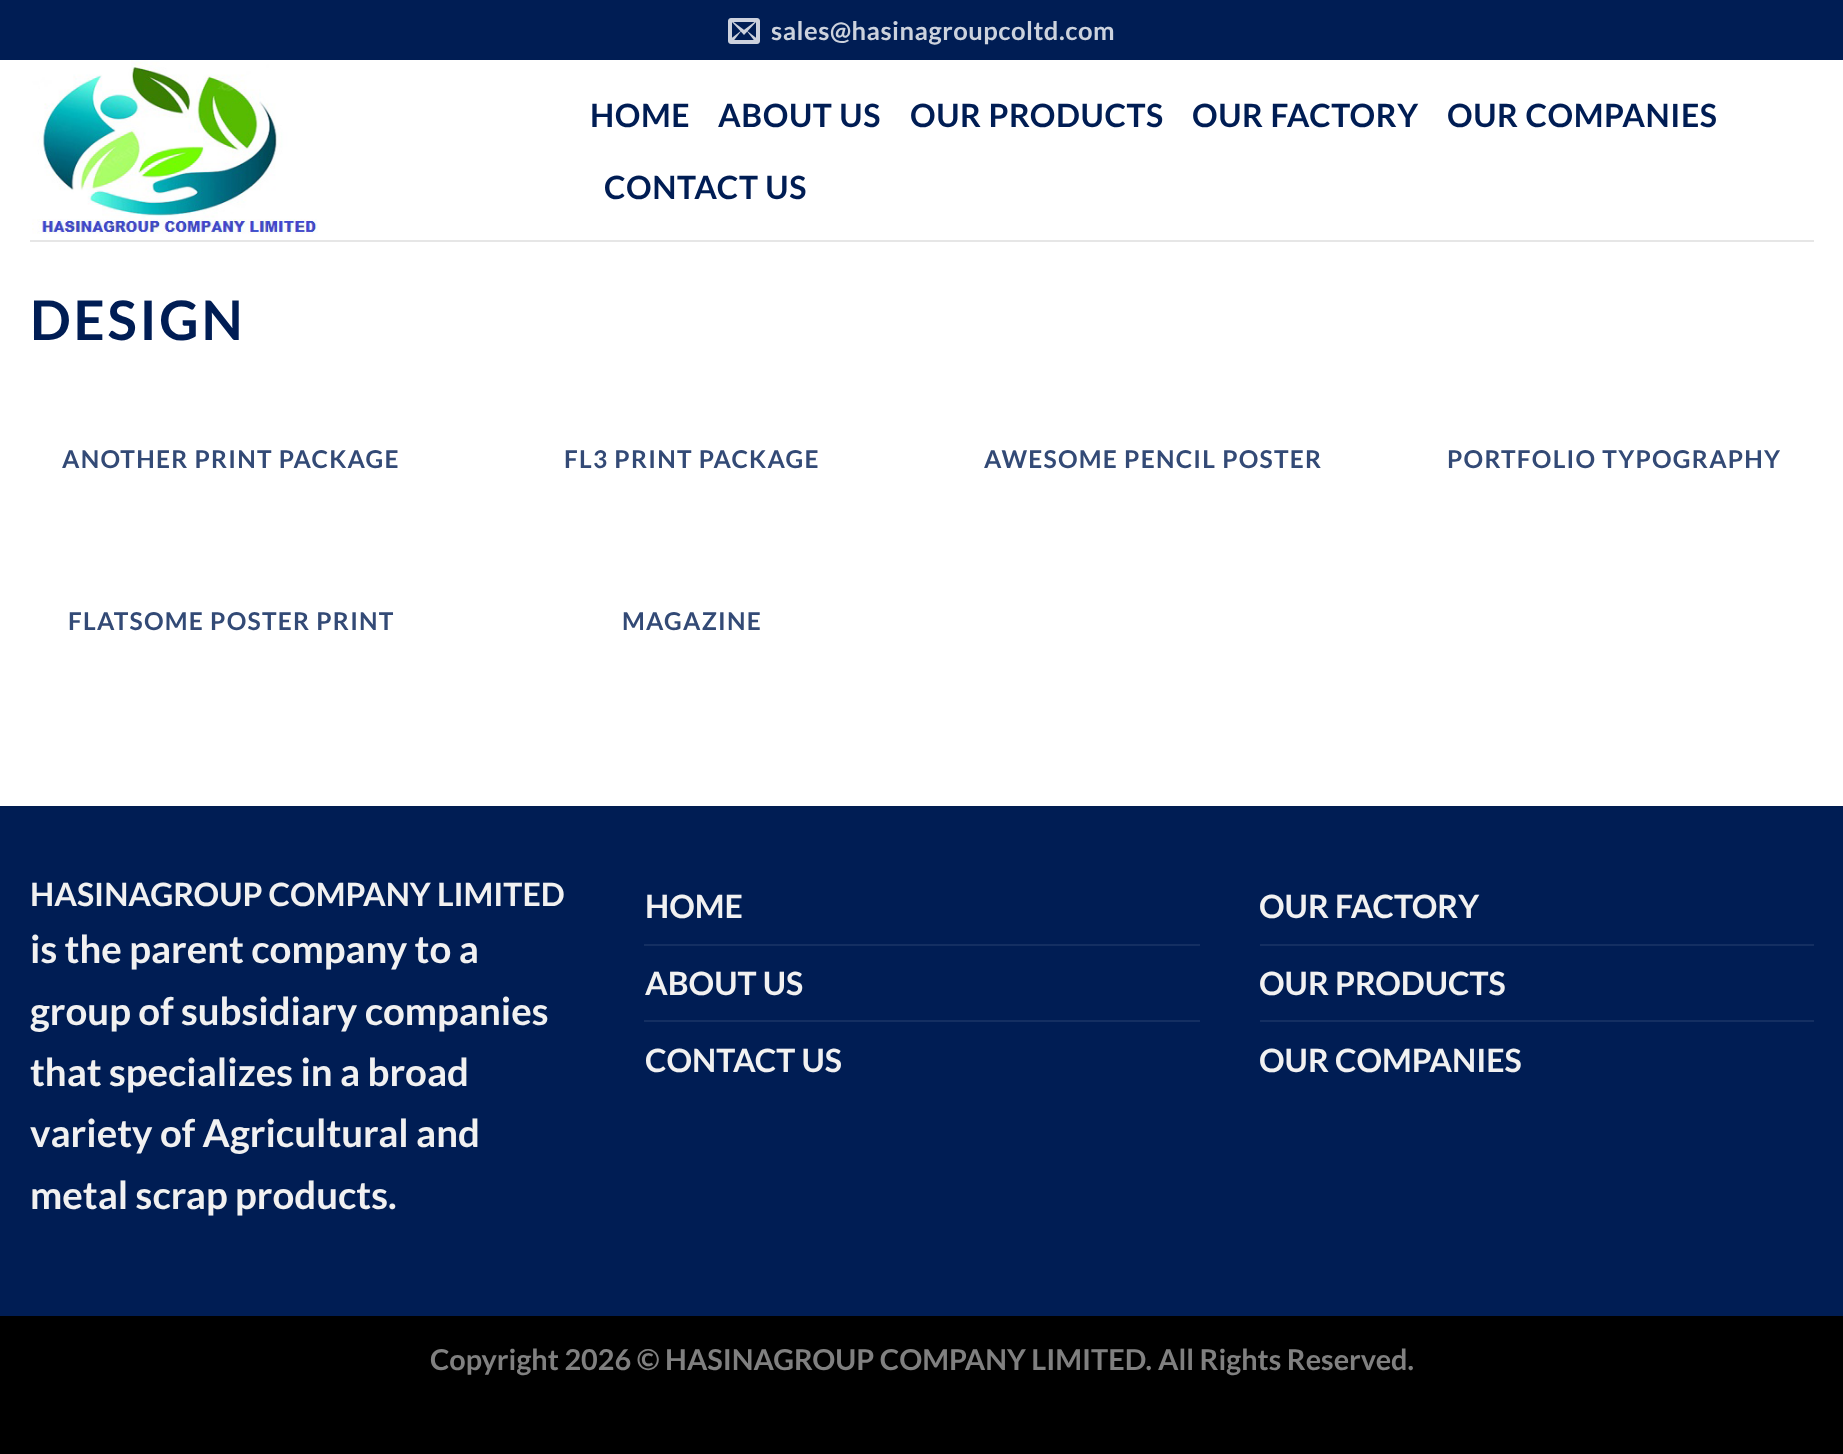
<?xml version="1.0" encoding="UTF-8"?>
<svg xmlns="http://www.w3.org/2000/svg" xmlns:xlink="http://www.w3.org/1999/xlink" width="1843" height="1454">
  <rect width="100%" height="100%" fill="#000000" />
  <rect y="60" width="1843" height="746" fill="#ffffff" />
  <rect width="1843" height="60" fill="#001d54" />
  <image x="728" y="18" width="32" height="26" xlink:href="image1.png" />
  <image x="32" y="60" width="286" height="174" xlink:href="image2.png" />
  <rect x="30" y="240" width="1784" height="2" fill="#e6e6e6" />
  <rect y="808" width="1843" height="508" fill="#001d54" />
  <rect y="806" width="1843" height="2" fill="#001c50" />
  <rect x="644" y="944" width="556" height="2" fill="#142f62" />
  <rect x="644" y="1020" width="556" height="2" fill="#142f62" />
  <rect x="1260" y="944" width="554" height="2" fill="#142f62" />
  <rect x="1260" y="1020" width="554" height="2" fill="#142f62" />
  <text x="771" y="40" style="font-family: Lato; font-size: 25.6px; font-weight: bold; letter-spacing: 0.5px; fill: #ccd2dd">sales@hasinagroupcoltd.com</text>
  <text x="590" y="127" style="font-family: Lato; font-size: 32px; font-weight: bold; letter-spacing: 0.6px; fill: #001d54">HOME</text>
  <text x="718" y="127" style="font-family: Lato; font-size: 32px; font-weight: bold; letter-spacing: 0.6px; fill: #001d54">ABOUT US</text>
  <text x="910" y="127" style="font-family: Lato; font-size: 32px; font-weight: bold; letter-spacing: 0.6px; fill: #001d54">OUR PRODUCTS</text>
  <text x="1192" y="127" style="font-family: Lato; font-size: 32px; font-weight: bold; letter-spacing: 0.6px; fill: #001d54">OUR FACTORY</text>
  <text x="1447" y="127" style="font-family: Lato; font-size: 32px; font-weight: bold; letter-spacing: 0.6px; fill: #001d54">OUR COMPANIES</text>
  <text x="604" y="199" style="font-family: Lato; font-size: 32px; font-weight: bold; letter-spacing: 0.6px; fill: #001d54">CONTACT US</text>
  <text x="30" y="340" style="font-family: Lato; font-size: 54.5px; font-weight: bold; letter-spacing: 2.75px; fill: #001d54">DESIGN</text>
  <text x="62" y="468" style="font-family: Lato; font-size: 24.5px; font-weight: bold; letter-spacing: 1.25px; fill: #334a76">ANOTHER PRINT PACKAGE</text>
  <text x="564" y="468" style="font-family: Lato; font-size: 24.5px; font-weight: bold; letter-spacing: 1.25px; fill: #334a76">FL3 PRINT PACKAGE</text>
  <text x="984" y="468" style="font-family: Lato; font-size: 24.5px; font-weight: bold; letter-spacing: 1.25px; fill: #334a76">AWESOME PENCIL POSTER</text>
  <text x="1447" y="468" style="font-family: Lato; font-size: 24.5px; font-weight: bold; letter-spacing: 1.25px; fill: #334a76">PORTFOLIO TYPOGRAPHY</text>
  <text x="68" y="630" style="font-family: Lato; font-size: 24.5px; font-weight: bold; letter-spacing: 1.25px; fill: #334a76">FLATSOME POSTER PRINT</text>
  <text x="622" y="630" style="font-family: Lato; font-size: 24.5px; font-weight: bold; letter-spacing: 1.25px; fill: #334a76">MAGAZINE</text>
  <text x="30" y="906" style="font-family: Lato; font-size: 32px; font-weight: bold; fill: #f1f1f1">HASINAGROUP COMPANY LIMITED</text>
  <text x="30" y="963" style="font-family: Lato; font-size: 38.4px; font-weight: bold; fill: #f1f1f1">is the parent company to a</text>
  <text x="30" y="1025" style="font-family: Lato; font-size: 38.4px; font-weight: bold; fill: #f1f1f1">group of subsidiary companies</text>
  <text x="30" y="1086" style="font-family: Lato; font-size: 38.4px; font-weight: bold; fill: #f1f1f1">that specializes in a broad</text>
  <text x="30" y="1147" style="font-family: Lato; font-size: 38.4px; font-weight: bold; fill: #f1f1f1">variety of Agricultural and</text>
  <text x="30" y="1209" style="font-family: Lato; font-size: 38.4px; font-weight: bold; fill: #f1f1f1">metal scrap products.</text>
  <text x="645" y="918" style="font-family: Lato; font-size: 32px; font-weight: bold; fill: #f1f1f1">HOME</text>
  <text x="645" y="995" style="font-family: Lato; font-size: 32px; font-weight: bold; fill: #f1f1f1">ABOUT US</text>
  <text x="645" y="1072" style="font-family: Lato; font-size: 32px; font-weight: bold; fill: #f1f1f1">CONTACT US</text>
  <text x="1259" y="918" style="font-family: Lato; font-size: 32px; font-weight: bold; fill: #f1f1f1">OUR FACTORY</text>
  <text x="1259" y="995" style="font-family: Lato; font-size: 32px; font-weight: bold; fill: #f1f1f1">OUR PRODUCTS</text>
  <text x="1259" y="1072" style="font-family: Lato; font-size: 32px; font-weight: bold; fill: #f1f1f1">OUR COMPANIES</text>
  <text x="430" y="1370" style="font-family: Lato; font-size: 28.8px; font-weight: bold; fill: #808080">Copyright 2026 © HASINAGROUP COMPANY LIMITED.</text>
  <text x="1158" y="1370" style="font-family: Lato; font-size: 28.8px; font-weight: bold; fill: #808080">All Rights Reserved.</text>
</svg>
